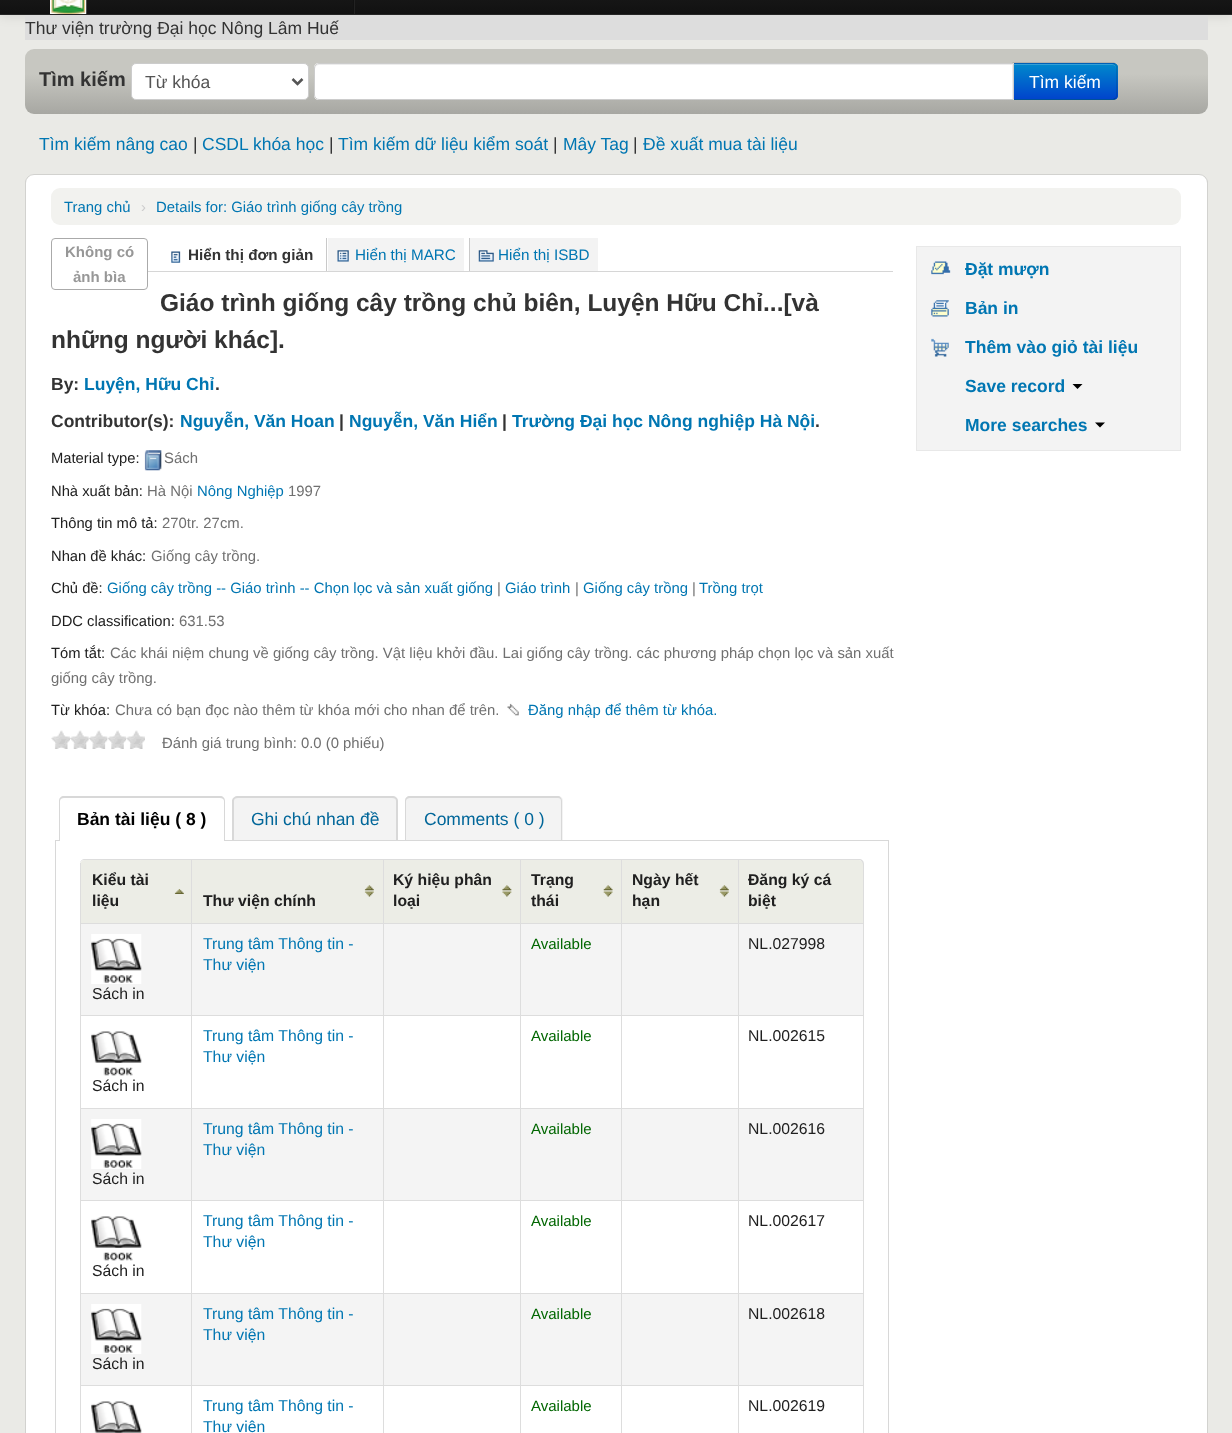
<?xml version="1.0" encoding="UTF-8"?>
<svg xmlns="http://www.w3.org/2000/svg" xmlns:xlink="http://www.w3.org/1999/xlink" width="1232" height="1433">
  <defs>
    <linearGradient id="g1" gradientUnits="userSpaceOnUse" x1="616" y1="-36" x2="616" y2="14"><stop offset="0" stop-color="#222222" /><stop offset="1" stop-color="#111111" /></linearGradient>
    <linearGradient id="g2" gradientUnits="userSpaceOnUse" x1="616" y1="49" x2="616" y2="114"><stop offset="0.38" stop-color="#c7c7c1" /><stop offset="1" stop-color="#a7a7a2" /></linearGradient>
    <clipPath id="clip1"><path d="M 1013 63 h 100 c 3 0 5 2 5 5 v 27 c 0 3 -2 5 -5 5 h -100 z" /></clipPath>
    <linearGradient id="g3" gradientUnits="userSpaceOnUse" x1="1065" y1="64" x2="1065" y2="99"><stop offset="0" stop-color="#0088cc" /><stop offset="1" stop-color="#0044cc" /></linearGradient>
  </defs>
  <rect width="100%" height="100%" fill="#eaeae6" />
  <rect y="-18" width="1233" height="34" fill="#000000" fill-opacity="0.1" filter="blur(6px)" />
  <rect width="1232" height="14" fill="url(#g1)" />
  <rect y="14" width="1232" height="1" fill="#252525" />
  <image x="50" y="0" width="37" height="14" xlink:href="image1.png" />
  <rect x="354" width="1" height="14" fill="#222222" />
  <rect x="353" width="1" height="14" fill="#111111" />
  <rect x="25" y="15" width="1183" height="25" fill="#dddddd" />
  <rect x="25" y="49" width="1183" height="65" rx="9" fill="url(#g2)" />
  <rect x="131.5" y="63.5" width="177" height="36" rx="4.5" fill="#ffffff" stroke="#cccccc" />
  <path d="M 292.5 79 l 5 5 l 5 -5" fill="none" stroke="#555555" stroke-width="2.5" />
  <path d="M 1013 63 h 100 c 3 0 5 2 5 5 v 27 c 0 3 -2 5 -5 5 h -100 z" fill="#006dcc" />
  <g clip-path="url(#clip1)">
    <rect x="1014" y="64" width="104" height="35" fill="url(#g3)" />
  </g>
  <path d="M 1014 65 h 98 c 3 0 4 2 4 4 v -1 c 0 -2 -2 -4 -4 -4 h -98 z" fill="#339fd6" />
  <path d="M 1014 64 l -2 -2 h 102 l 2 2 l -1 1 l -3 -1 z" fill="#000000" fill-opacity="0.1" />
  <path d="M 1117.5 97 l -1.5 1.5 l -1 -1 c 1 -0.5 1 -1.5 1 -2.5 v -27 c 0 -1.5 0 -2.5 -1 -3 l 1 -1 l 1.5 2 z" fill="#000000" fill-opacity="0.1" />
  <path d="M 1012 100 h 100 c 2 0 3 0 4 -1 l -1 -1 l -2 1 h -99 v -1 z" fill="#000000" fill-opacity="0.25" />
  <path d="M 319 63 h 695 v 37 h -695 c -3 0 -5 -2 -5 -5 v -27 c 0 -3 2 -5 5 -5 z" fill="#ffffff" />
  <path d="M 319 65 h 693 v 34 h 1 v -35 h -694 c -2 0 -4 2 -4 4 v 1 c 0 -2 2 -4 4 -4 z" fill="#ececec" />
  <path d="M 319 63.5 h 694.5 v 36 h -694.5 c -2.5 0 -4.5 -2 -4.5 -4.5 v -27 c 0 -2.5 2 -4.5 4.5 -4.5 z" fill="none" stroke="#cccccc" />
  <rect x="25" y="175" width="1183" height="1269" rx="9" fill="#000000" fill-opacity="0.2" filter="blur(0.5px)" />
  <rect x="25.5" y="174.5" width="1182" height="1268" rx="8.5" fill="#ffffff" stroke="#d2d2cf" />
  <rect x="51" y="188" width="1130" height="37" rx="9" fill="#f2f2ef" />
  <rect x="51.5" y="238.5" width="96" height="51" rx="3.5" fill="none" stroke="#aaaaaa" />
  <rect x="148" y="271" width="745" height="1" fill="#d6d6d6" />
  <image x="171" y="251" width="10" height="12" xlink:href="image2.png" />
  <rect x="328" y="238" width="136" height="33" fill="#f3f3f3" />
  <rect x="326" y="238" width="1" height="33" fill="#c9c9c9" />
  <image x="337" y="250" width="12" height="12" xlink:href="image3.png" />
  <rect x="470" y="238" width="128" height="33" fill="#f3f3f3" />
  <rect x="469" y="238" width="1" height="33" fill="#c9c9c9" />
  <image x="478" y="250" width="16" height="12" xlink:href="image4.png" />
  <image x="144" y="450" width="18" height="21" xlink:href="image5.png" />
  <image x="507" y="703" width="12" height="13" xlink:href="image6.png" />
  <image x="51" y="730" width="19" height="19" xlink:href="image7.png" />
  <image x="70" y="730" width="19" height="19" xlink:href="image8.png" />
  <image x="89" y="730" width="19" height="19" xlink:href="image9.png" />
  <image x="108" y="730" width="19" height="19" xlink:href="image10.png" />
  <image x="126" y="730" width="19" height="19" xlink:href="image11.png" />
  <rect x="55.5" y="840.5" width="833" height="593" fill="none" stroke="#d8d8d8" />
  <path d="M 64 796 h 156 c 3 0 5 2 5 5 v 40 h -166 v -40 c 0 -3 2 -5 5 -5 z" fill="#ffffff" />
  <path d="M 64 796 h 156 c 3 0 5 2 5 5 v 40 h -166 v -40 c 0 -3 2 -5 5 -5 z m 0 2 h 156 c 2 0 4 1 4 3 v 40 h -164 v -40 c 0 -2 2 -3 4 -3 z" fill="#d8d8d8" fill-rule="evenodd" />
  <path d="M 238 796 h 155 c 3 0 5 2 5 5 v 39 h -165 v -39 c 0 -3 2 -5 5 -5 z" fill="#f3f3f3" />
  <path d="M 238 796 h 154 c 3 0 6 2 6 5 v 39 h -166 v -39 c 0 -3 3 -5 6 -5 z m 0 2 h 154 c 3 0 4 1 4 3 v 39 h -162 v -39 c 0 -2 1 -3 4 -3 z" fill="#d8d8d8" fill-rule="evenodd" />
  <path d="M 410 796 h 148 c 3 0 5 2 5 5 v 39 h -158 v -39 c 0 -3 2 -5 5 -5 z" fill="#f3f3f3" />
  <path d="M 410 796 h 148 c 2 0 4 2 4 5 v 39 h -157 v -39 c 0 -3 2 -5 5 -5 z m 0 2 h 148 c 2 0 3 1 3 3 v 39 h -155 v -39 c 0 -2 2 -3 4 -3 z" fill="#d8d8d8" fill-rule="evenodd" />
  <path d="M 85 859 h 774 c 3 0 5 2 5 5 v 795 c 0 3 -2 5 -5 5 h -774 c -3 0 -5 -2 -5 -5 v -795 c 0 -3 2 -5 5 -5 z m 0 1 h 774 c 2 0 3 2 3 4 v 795 c 0 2 -1 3 -3 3 h -774 c -3 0 -5 -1 -5 -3 v -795 c 0 -2 2 -4 5 -4 z" fill="#dddddd" fill-rule="evenodd" />
  <path d="M 85 860 h 106 v 63 h -111 v -58 c 0 -3 2 -5 5 -5 z" fill="#ecede6" />
  <image x="174" y="889" width="10" height="5" xlink:href="image12.png" />
  <rect x="80" y="863" width="1" height="60" fill="#dddddd" />
  <rect x="192" y="860" width="191" height="63" fill="#ecede6" />
  <image x="364" y="885" width="10" height="12" xlink:href="image13.png" />
  <rect x="191" y="860" width="1" height="63" fill="#dddddd" />
  <rect x="384" y="860" width="136" height="63" fill="#ecede6" />
  <image x="502" y="885" width="10" height="12" xlink:href="image14.png" />
  <rect x="383" y="860" width="1" height="63" fill="#dddddd" />
  <rect x="521" y="860" width="100" height="63" fill="#ecede6" />
  <image x="603" y="885" width="10" height="12" xlink:href="image15.png" />
  <rect x="520" y="860" width="1" height="63" fill="#dddddd" />
  <rect x="622" y="860" width="116" height="63" fill="#ecede6" />
  <image x="719" y="885" width="10" height="12" xlink:href="image13.png" />
  <rect x="621" y="860" width="1" height="63" fill="#dddddd" />
  <path d="M 738 860 h 120 c 3 0 5 2 5 5 v 58 h -125 z" fill="#ecede6" />
  <rect x="738" y="860" width="1" height="63" fill="#dddddd" />
  <rect x="192" y="924" width="191" height="91" fill="#f4f4f4" />
  <rect x="80" y="923" width="783" height="1" fill="#dddddd" />
  <rect x="191" y="923" width="1" height="92" fill="#dddddd" />
  <rect x="384" y="924" width="136" height="91" fill="#f4f4f4" />
  <rect x="383" y="923" width="1" height="92" fill="#dddddd" />
  <rect x="521" y="924" width="100" height="91" fill="#f4f4f4" />
  <rect x="520" y="923" width="1" height="92" fill="#dddddd" />
  <rect x="622" y="924" width="116" height="91" fill="#f4f4f4" />
  <rect x="621" y="923" width="1" height="92" fill="#dddddd" />
  <rect x="739" y="924" width="124" height="91" fill="#f4f4f4" />
  <rect x="738" y="923" width="1" height="92" fill="#dddddd" />
  <rect x="81" y="924" width="110" height="91" fill="#f4f4f4" />
  <rect x="80" y="923" width="1" height="92" fill="#dddddd" />
  <image x="91" y="934" width="51" height="50" xlink:href="image16.png" />
  <rect x="80" y="1015" width="783" height="1" fill="#dddddd" />
  <rect x="191" y="1015" width="1" height="93" fill="#dddddd" />
  <rect x="383" y="1015" width="1" height="93" fill="#dddddd" />
  <rect x="520" y="1015" width="1" height="93" fill="#dddddd" />
  <rect x="621" y="1015" width="1" height="93" fill="#dddddd" />
  <rect x="862" y="1016" width="1" height="92" fill="#ffffff" />
  <rect x="738" y="1015" width="1" height="93" fill="#dddddd" />
  <rect x="80" y="1015" width="1" height="93" fill="#dddddd" />
  <image x="91" y="1031" width="51" height="45" xlink:href="image17.png" />
  <rect x="192" y="1109" width="191" height="91" fill="#f4f4f4" />
  <rect x="80" y="1108" width="783" height="1" fill="#dddddd" />
  <rect x="191" y="1108" width="1" height="92" fill="#dddddd" />
  <rect x="384" y="1109" width="136" height="91" fill="#f4f4f4" />
  <rect x="383" y="1108" width="1" height="92" fill="#dddddd" />
  <rect x="521" y="1109" width="100" height="91" fill="#f4f4f4" />
  <rect x="520" y="1108" width="1" height="92" fill="#dddddd" />
  <rect x="622" y="1109" width="116" height="91" fill="#f4f4f4" />
  <rect x="621" y="1108" width="1" height="92" fill="#dddddd" />
  <rect x="739" y="1109" width="124" height="91" fill="#f4f4f4" />
  <rect x="738" y="1108" width="1" height="92" fill="#dddddd" />
  <rect x="81" y="1109" width="110" height="91" fill="#f4f4f4" />
  <rect x="80" y="1108" width="1" height="92" fill="#dddddd" />
  <image x="91" y="1119" width="51" height="50" xlink:href="image18.png" />
  <rect x="80" y="1200" width="783" height="1" fill="#dddddd" />
  <rect x="191" y="1200" width="1" height="93" fill="#dddddd" />
  <rect x="383" y="1200" width="1" height="93" fill="#dddddd" />
  <rect x="520" y="1200" width="1" height="93" fill="#dddddd" />
  <rect x="621" y="1200" width="1" height="93" fill="#dddddd" />
  <rect x="862" y="1201" width="1" height="92" fill="#ffffff" />
  <rect x="738" y="1200" width="1" height="93" fill="#dddddd" />
  <rect x="80" y="1200" width="1" height="93" fill="#dddddd" />
  <image x="91" y="1216" width="51" height="45" xlink:href="image17.png" />
  <rect x="192" y="1294" width="191" height="91" fill="#f4f4f4" />
  <rect x="80" y="1293" width="783" height="1" fill="#dddddd" />
  <rect x="191" y="1293" width="1" height="92" fill="#dddddd" />
  <rect x="384" y="1294" width="136" height="91" fill="#f4f4f4" />
  <rect x="383" y="1293" width="1" height="92" fill="#dddddd" />
  <rect x="521" y="1294" width="100" height="91" fill="#f4f4f4" />
  <rect x="520" y="1293" width="1" height="92" fill="#dddddd" />
  <rect x="622" y="1294" width="116" height="91" fill="#f4f4f4" />
  <rect x="621" y="1293" width="1" height="92" fill="#dddddd" />
  <rect x="739" y="1294" width="124" height="91" fill="#f4f4f4" />
  <rect x="738" y="1293" width="1" height="92" fill="#dddddd" />
  <rect x="81" y="1294" width="110" height="91" fill="#f4f4f4" />
  <rect x="80" y="1293" width="1" height="92" fill="#dddddd" />
  <image x="91" y="1304" width="51" height="50" xlink:href="image16.png" />
  <rect x="80" y="1385" width="783" height="1" fill="#dddddd" />
  <rect x="80" y="1385" width="1" height="48" fill="#dddddd" />
  <image x="91" y="1401" width="51" height="32" xlink:href="image19.png" />
  <rect x="191" y="1385" width="1" height="48" fill="#dddddd" />
  <rect x="383" y="1385" width="1" height="48" fill="#dddddd" />
  <rect x="520" y="1385" width="1" height="48" fill="#dddddd" />
  <rect x="621" y="1385" width="1" height="48" fill="#dddddd" />
  <rect x="862" y="1386" width="1" height="47" fill="#ffffff" />
  <rect x="738" y="1385" width="1" height="48" fill="#dddddd" />
  <rect x="916.5" y="246.5" width="264" height="204" fill="#f3f3f3" stroke="#e8e8e8" />
  <image x="931" y="261" width="20" height="14" xlink:href="image20.png" />
  <image x="931" y="300" width="18" height="17" xlink:href="image21.png" />
  <image x="931" y="338" width="18" height="19" xlink:href="image22.png" />
  <path d="M 1072.5 384 h 10 l -5 5 z" fill="#000000" />
  <path d="M 1095 422.5 h 10 l -5 5 z" fill="#000000" />
  <text x="25" y="34" style="font-family: Liberation Sans; font-size: 17.5px; fill: #333333">Thư viện trường Đại học Nông Lâm Huế</text>
  <text x="39" y="86" style="font-family: Liberation Sans; font-size: 20px; font-weight: bold; fill: #333333">Tìm kiếm</text>
  <text x="145" y="88" style="font-family: Liberation Sans; font-size: 17.5px; fill: #555555">Từ khóa</text>
  <text x="1029" y="88" style="font-family: Liberation Sans; font-size: 17.5px; fill: #ffffff">Tìm kiếm</text>
  <text x="39" y="150" style="font-family: Liberation Sans; font-size: 17.5px; fill: #0076b2">Tìm kiếm nâng cao</text>
  <text x="193" y="150" style="font-family: Liberation Sans; font-size: 17.5px; fill: #333333">|</text>
  <text x="202" y="150" style="font-family: Liberation Sans; font-size: 17.5px; fill: #0076b2">CSDL khóa học</text>
  <text x="329" y="150" style="font-family: Liberation Sans; font-size: 17.5px; fill: #333333">|</text>
  <text x="338" y="150" style="font-family: Liberation Sans; font-size: 17.5px; fill: #0076b2">Tìm kiếm dữ liệu kiểm soát</text>
  <text x="553" y="150" style="font-family: Liberation Sans; font-size: 17.5px; fill: #333333">|</text>
  <text x="563" y="150" style="font-family: Liberation Sans; font-size: 17.5px; fill: #0076b2">Mây Tag</text>
  <text x="633" y="150" style="font-family: Liberation Sans; font-size: 17.5px; fill: #333333">|</text>
  <text x="643" y="150" style="font-family: Liberation Sans; font-size: 17.5px; fill: #0076b2">Đề xuất mua tài liệu</text>
  <text x="64" y="212" style="font-family: Liberation Sans; font-size: 14.88px; fill: #0076b2">Trang chủ</text>
  <text x="141" y="212" style="font-family: Liberation Sans; font-size: 14.88px; fill: #cccccc">›</text>
  <text x="156" y="212" style="font-family: Liberation Sans; font-size: 14.88px; fill: #0076b2">Details for: Giáo trình giống cây trồng</text>
  <text x="65" y="257" style="font-family: Liberation Sans; font-size: 15px; font-weight: bold; fill: #979797">Không có</text>
  <text x="73" y="282" style="font-family: Liberation Sans; font-size: 15px; font-weight: bold; fill: #979797">ảnh bìa</text>
  <text x="188" y="260" style="font-family: Liberation Sans; font-size: 15.25px; font-weight: bold; fill: #333333">Hiển thị đơn giản</text>
  <text x="355" y="260" style="font-family: Liberation Sans; font-size: 15.25px; fill: #0076b2">Hiển thị MARC</text>
  <text x="498" y="260" style="font-family: Liberation Sans; font-size: 15.25px; fill: #0076b2">Hiển thị ISBD</text>
  <text x="160" y="311" style="font-family: Liberation Sans; font-size: 24.5px; font-weight: bold; fill: #333333">Giáo trình giống cây trồng chủ biên, Luyện Hữu Chỉ...[và</text>
  <text x="51" y="348" style="font-family: Liberation Sans; font-size: 24.5px; font-weight: bold; fill: #333333">những người khác].</text>
  <text x="51" y="390" style="font-family: Liberation Sans; font-size: 17.5px; font-weight: bold; fill: #333333">By:</text>
  <text x="84" y="390" style="font-family: Liberation Sans; font-size: 17.5px; font-weight: bold; fill: #0076b2">Luyện, Hữu Chỉ</text>
  <text x="215" y="390" style="font-family: Liberation Sans; font-size: 17.5px; font-weight: bold; fill: #333333">.</text>
  <text x="51" y="427" style="font-family: Liberation Sans; font-size: 17.5px; font-weight: bold; fill: #333333">Contributor(s):</text>
  <text x="180" y="427" style="font-family: Liberation Sans; font-size: 17.5px; font-weight: bold; fill: #0076b2">Nguyễn, Văn Hoan</text>
  <text x="339" y="427" style="font-family: Liberation Sans; font-size: 17.5px; font-weight: bold; fill: #333333">|</text>
  <text x="349" y="427" style="font-family: Liberation Sans; font-size: 17.5px; font-weight: bold; fill: #0076b2">Nguyễn, Văn Hiển</text>
  <text x="502" y="427" style="font-family: Liberation Sans; font-size: 17.5px; font-weight: bold; fill: #333333">|</text>
  <text x="512" y="427" style="font-family: Liberation Sans; font-size: 17.5px; font-weight: bold; fill: #0076b2">Trường Đại học Nông nghiệp Hà Nội</text>
  <text x="815" y="427" style="font-family: Liberation Sans; font-size: 17.5px; font-weight: bold; fill: #333333">.</text>
  <text x="51" y="463" style="font-family: Liberation Sans; font-size: 14.75px; fill: #202020">Material type:</text>
  <text x="164" y="463" style="font-family: Liberation Sans; font-size: 14.88px; fill: #707070">Sách</text>
  <text x="51" y="496" style="font-family: Liberation Sans; font-size: 14.75px; fill: #202020">Nhà xuất bản:</text>
  <text x="147" y="496" style="font-family: Liberation Sans; font-size: 14.88px; fill: #707070">Hà Nội</text>
  <text x="197" y="496" style="font-family: Liberation Sans; font-size: 14.88px; fill: #0076b2">Nông Nghiệp</text>
  <text x="288" y="496" style="font-family: Liberation Sans; font-size: 14.88px; fill: #707070">1997</text>
  <text x="51" y="528" style="font-family: Liberation Sans; font-size: 14.75px; fill: #202020">Thông tin mô tả:</text>
  <text x="162" y="528" style="font-family: Liberation Sans; font-size: 14.88px; fill: #707070">270tr. 27cm.</text>
  <text x="51" y="561" style="font-family: Liberation Sans; font-size: 14.75px; fill: #202020">Nhan đề khác:</text>
  <text x="151" y="561" style="font-family: Liberation Sans; font-size: 14.88px; fill: #707070">Giống cây trồng.</text>
  <text x="51" y="593" style="font-family: Liberation Sans; font-size: 14.75px; fill: #202020">Chủ đề:</text>
  <text x="107" y="593" style="font-family: Liberation Sans; font-size: 14.88px; fill: #0076b2">Giống cây trồng -- Giáo trình -- Chọn lọc và sản xuất giống</text>
  <text x="497" y="593" style="font-family: Liberation Sans; font-size: 14.88px; fill: #707070">|</text>
  <text x="505" y="593" style="font-family: Liberation Sans; font-size: 14.88px; fill: #0076b2">Giáo trình</text>
  <text x="575" y="593" style="font-family: Liberation Sans; font-size: 14.88px; fill: #707070">|</text>
  <text x="583" y="593" style="font-family: Liberation Sans; font-size: 14.88px; fill: #0076b2">Giống cây trồng</text>
  <text x="692" y="593" style="font-family: Liberation Sans; font-size: 14.88px; fill: #707070">|</text>
  <text x="699" y="593" style="font-family: Liberation Sans; font-size: 14.88px; fill: #0076b2">Trồng trọt</text>
  <text x="51" y="626" style="font-family: Liberation Sans; font-size: 14.75px; fill: #202020">DDC classification:</text>
  <text x="179" y="626" style="font-family: Liberation Sans; font-size: 14.88px; fill: #707070">631.53</text>
  <text x="51" y="658" style="font-family: Liberation Sans; font-size: 14.75px; fill: #202020">Tóm tắt:</text>
  <text x="110" y="658" style="font-family: Liberation Sans; font-size: 14.88px; fill: #707070">Các khái niệm chung về giống cây trồng. Vật liệu khởi đầu. Lai giống cây trồng. các phương pháp chọn lọc và sản xuất</text>
  <text x="51" y="683" style="font-family: Liberation Sans; font-size: 14.88px; fill: #707070">giống cây trồng.</text>
  <text x="51" y="715" style="font-family: Liberation Sans; font-size: 14.75px; fill: #202020">Từ khóa:</text>
  <text x="115" y="715" style="font-family: Liberation Sans; font-size: 14.88px; fill: #707070">Chưa có bạn đọc nào thêm từ khóa mới cho nhan để trên.</text>
  <text x="528" y="715" style="font-family: Liberation Sans; font-size: 14.88px; fill: #0076b2">Đăng nhập để thêm từ khóa.</text>
  <text x="162" y="748" style="font-family: Liberation Sans; font-size: 14.88px; fill: #707070">Đánh giá trung bình: 0.0 (0 phiếu)</text>
  <text x="77" y="825" style="font-family: Liberation Sans; font-size: 17.5px; font-weight: bold; fill: #000000">Bản tài liệu ( 8 )</text>
  <text x="251" y="825" style="font-family: Liberation Sans; font-size: 17.5px; fill: #006699">Ghi chú nhan đề</text>
  <text x="424" y="825" style="font-family: Liberation Sans; font-size: 17.5px; fill: #006699">Comments ( 0 )</text>
  <text x="92" y="885" style="font-family: Liberation Sans; font-size: 15.75px; font-weight: bold; fill: #202020">Kiểu tài</text>
  <text x="92" y="906" style="font-family: Liberation Sans; font-size: 15.75px; font-weight: bold; fill: #202020">liệu</text>
  <text x="203" y="906" style="font-family: Liberation Sans; font-size: 15.75px; font-weight: bold; fill: #202020">Thư viện chính</text>
  <text x="393" y="885" style="font-family: Liberation Sans; font-size: 15.75px; font-weight: bold; fill: #202020">Ký hiệu phân</text>
  <text x="393" y="906" style="font-family: Liberation Sans; font-size: 15.75px; font-weight: bold; fill: #202020">loại</text>
  <text x="531" y="885" style="font-family: Liberation Sans; font-size: 15.75px; font-weight: bold; fill: #202020">Trạng</text>
  <text x="531" y="906" style="font-family: Liberation Sans; font-size: 15.75px; font-weight: bold; fill: #202020">thái</text>
  <text x="632" y="885" style="font-family: Liberation Sans; font-size: 15.75px; font-weight: bold; fill: #202020">Ngày hết</text>
  <text x="632" y="906" style="font-family: Liberation Sans; font-size: 15.75px; font-weight: bold; fill: #202020">hạn</text>
  <text x="748" y="885" style="font-family: Liberation Sans; font-size: 15.75px; font-weight: bold; fill: #202020">Đăng ký cá</text>
  <text x="748" y="906" style="font-family: Liberation Sans; font-size: 15.75px; font-weight: bold; fill: #202020">biệt</text>
  <text x="203" y="949" style="font-family: Liberation Sans; font-size: 15.75px; fill: #0076b2">Trung tâm Thông tin -</text>
  <text x="203" y="970" style="font-family: Liberation Sans; font-size: 15.75px; fill: #0076b2">Thư viện</text>
  <text x="531" y="949" style="font-family: Liberation Sans; font-size: 15px; fill: #006600">Available</text>
  <text x="748" y="949" style="font-family: Liberation Sans; font-size: 15.75px; fill: #202020">NL.027998</text>
  <text x="92" y="999" style="font-family: Liberation Sans; font-size: 15.75px; fill: #202020">Sách in</text>
  <text x="203" y="1041" style="font-family: Liberation Sans; font-size: 15.75px; fill: #0076b2">Trung tâm Thông tin -</text>
  <text x="203" y="1062" style="font-family: Liberation Sans; font-size: 15.75px; fill: #0076b2">Thư viện</text>
  <text x="531" y="1041" style="font-family: Liberation Sans; font-size: 15px; fill: #006600">Available</text>
  <text x="748" y="1041" style="font-family: Liberation Sans; font-size: 15.75px; fill: #202020">NL.002615</text>
  <text x="92" y="1091" style="font-family: Liberation Sans; font-size: 15.75px; fill: #202020">Sách in</text>
  <text x="203" y="1134" style="font-family: Liberation Sans; font-size: 15.75px; fill: #0076b2">Trung tâm Thông tin -</text>
  <text x="203" y="1155" style="font-family: Liberation Sans; font-size: 15.75px; fill: #0076b2">Thư viện</text>
  <text x="531" y="1134" style="font-family: Liberation Sans; font-size: 15px; fill: #006600">Available</text>
  <text x="748" y="1134" style="font-family: Liberation Sans; font-size: 15.75px; fill: #202020">NL.002616</text>
  <text x="92" y="1184" style="font-family: Liberation Sans; font-size: 15.75px; fill: #202020">Sách in</text>
  <text x="203" y="1226" style="font-family: Liberation Sans; font-size: 15.75px; fill: #0076b2">Trung tâm Thông tin -</text>
  <text x="203" y="1247" style="font-family: Liberation Sans; font-size: 15.75px; fill: #0076b2">Thư viện</text>
  <text x="531" y="1226" style="font-family: Liberation Sans; font-size: 15px; fill: #006600">Available</text>
  <text x="748" y="1226" style="font-family: Liberation Sans; font-size: 15.75px; fill: #202020">NL.002617</text>
  <text x="92" y="1276" style="font-family: Liberation Sans; font-size: 15.75px; fill: #202020">Sách in</text>
  <text x="203" y="1319" style="font-family: Liberation Sans; font-size: 15.75px; fill: #0076b2">Trung tâm Thông tin -</text>
  <text x="203" y="1340" style="font-family: Liberation Sans; font-size: 15.75px; fill: #0076b2">Thư viện</text>
  <text x="531" y="1319" style="font-family: Liberation Sans; font-size: 15px; fill: #006600">Available</text>
  <text x="748" y="1319" style="font-family: Liberation Sans; font-size: 15.75px; fill: #202020">NL.002618</text>
  <text x="92" y="1369" style="font-family: Liberation Sans; font-size: 15.75px; fill: #202020">Sách in</text>
  <text x="203" y="1411" style="font-family: Liberation Sans; font-size: 15.75px; fill: #0076b2">Trung tâm Thông tin -</text>
  <text x="203" y="1432" style="font-family: Liberation Sans; font-size: 15.75px; fill: #0076b2">Thư viện</text>
  <text x="531" y="1411" style="font-family: Liberation Sans; font-size: 15px; fill: #006600">Available</text>
  <text x="748" y="1411" style="font-family: Liberation Sans; font-size: 15.75px; fill: #202020">NL.002619</text>
  <text x="965" y="275" style="font-family: Liberation Sans; font-size: 17.5px; font-weight: bold; fill: #0076b2">Đặt mượn</text>
  <text x="965" y="314" style="font-family: Liberation Sans; font-size: 17.5px; font-weight: bold; fill: #0076b2">Bản in</text>
  <text x="965" y="353" style="font-family: Liberation Sans; font-size: 17.5px; font-weight: bold; fill: #0076b2">Thêm vào giỏ tài liệu</text>
  <text x="965" y="392" style="font-family: Liberation Sans; font-size: 17.5px; font-weight: bold; fill: #0076b2">Save record</text>
  <text x="965" y="431" style="font-family: Liberation Sans; font-size: 17.5px; font-weight: bold; fill: #0076b2">More searches</text>
</svg>
